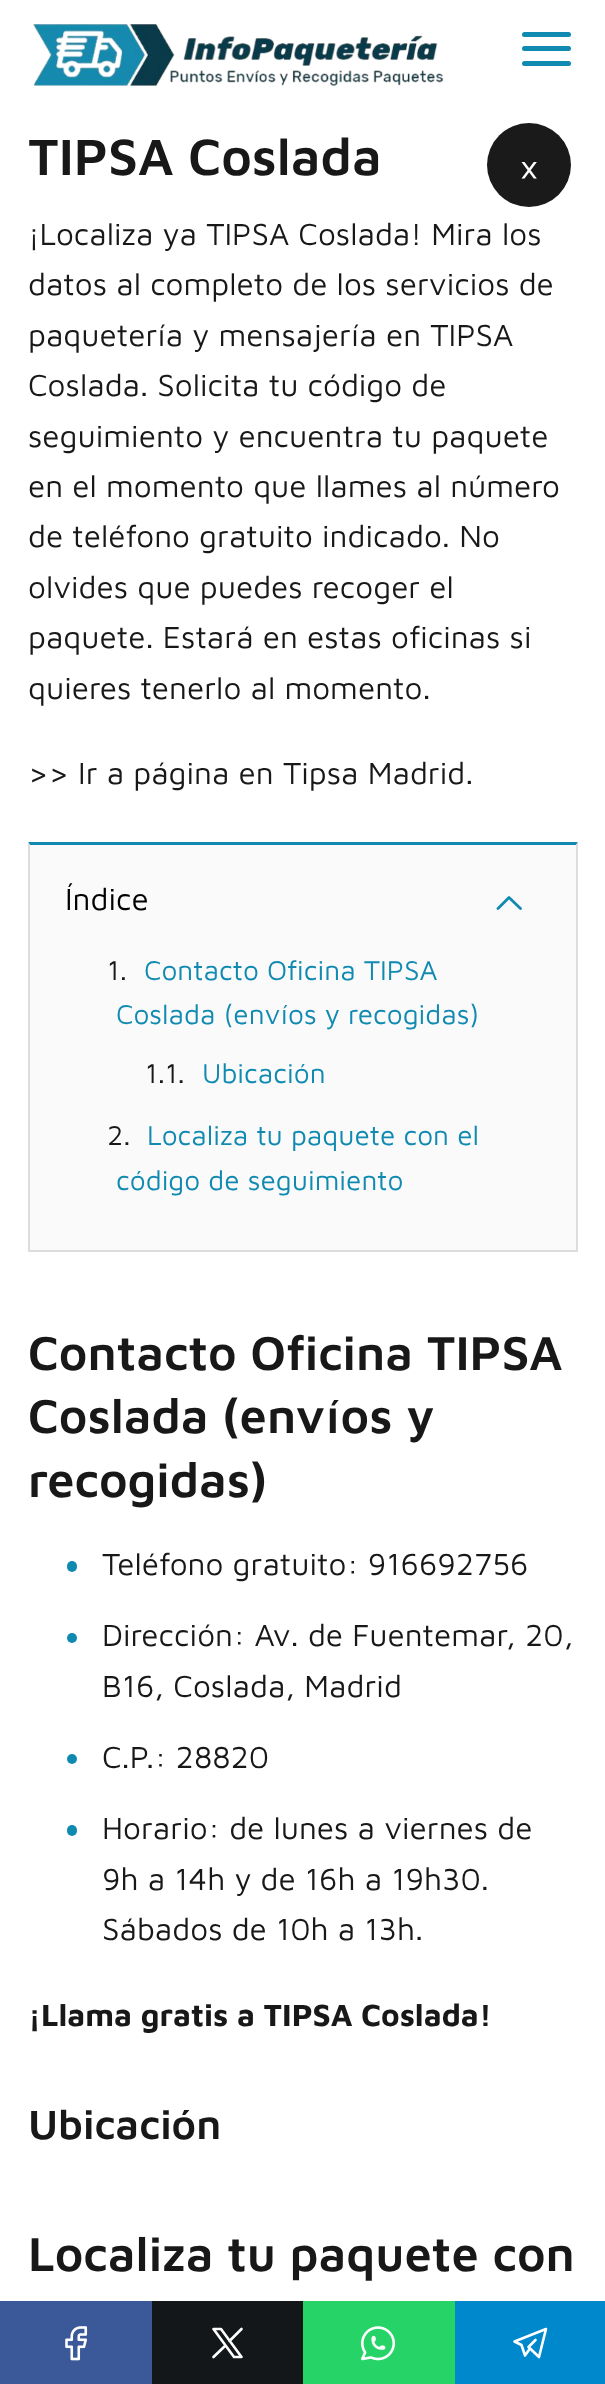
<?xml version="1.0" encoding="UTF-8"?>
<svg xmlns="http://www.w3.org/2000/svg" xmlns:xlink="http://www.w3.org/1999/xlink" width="605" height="2384">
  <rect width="100%" height="100%" fill="#ffffff" />
  <image x="33" y="23" width="411" height="63" xlink:href="image1.png" />
  <rect x="522" y="32" width="49" height="5" rx="2.5" fill="#118ab2" />
  <rect x="522" y="46" width="49" height="5" rx="2.5" fill="#118ab2" />
  <rect x="522" y="61" width="49" height="5" rx="2.5" fill="#118ab2" />
  <rect x="30" y="845" width="546" height="405" fill="#fafafa" />
  <path d="M 28 842 h 550 l -2 3 h -546 z" fill="#118ab2" />
  <path d="M 578 842 v 409 l -2 -1 v -405 z" fill="#dddddd" />
  <rect x="28" y="1250" width="550" height="2" fill="#dddddd" />
  <path d="M 28 1251 v -409 l 2 3 v 405 z" fill="#dddddd" />
  <path d="M 498 908.5 l 11 -11 l 11.5 11" fill="none" stroke="#118ab2" stroke-width="2.8" stroke-linecap="round" stroke-linejoin="round" />
  <rect x="67" y="1561" width="10" height="11" rx="5" fill="#118ab2" />
  <circle cx="72" cy="1638" r="5" fill="#118ab2" />
  <circle cx="72" cy="1759" r="5" fill="#118ab2" />
  <rect x="67" y="1825" width="10" height="11" rx="5" fill="#118ab2" />
  <rect y="2301" width="152" height="83" fill="#3b5998" />
  <image x="65" y="2326" width="23" height="35" xlink:href="image2.png" />
  <rect x="152" y="2301" width="151" height="83" fill="#14171a" />
  <path d="M 213.5 2329 l 20.5 28 h 7.5 l -20.5 -28 z m 0 28 l 12 -11.5 m 4 -4.5 l 12 -12" fill="none" stroke="#ffffff" stroke-width="2.6" stroke-linecap="round" stroke-linejoin="round" />
  <rect x="303" y="2301" width="152" height="83" fill="#25d366" />
  <image x="361" y="2326" width="35" height="35" xlink:href="image3.png" />
  <rect x="455" y="2301" width="150" height="83" fill="#0088cc" />
  <path d="M 535.5 2340 l -7 7 l 10.5 10 l 7 -28 l -31.5 12.5 l 7 3.5 l 3.5 10.5 l 5 -7" fill="none" stroke="#ffffff" stroke-width="2.6" stroke-linecap="round" stroke-linejoin="round" />
  <circle cx="529" cy="165" r="42" fill="#1a1a1a" />
  <text x="28" y="175" style="font-family: Maven Pro; font-size: 52.5px; font-weight: 600; fill: #181818">TIPSA Coslada</text>
  <text x="28" y="245" style="font-family: Maven Pro; font-size: 31.5px; fill: #181818">¡Localiza ya TIPSA Coslada! Mira los</text>
  <text x="28" y="295" style="font-family: Maven Pro; font-size: 31.5px; fill: #181818">datos al completo de los servicios de</text>
  <text x="28" y="346" style="font-family: Maven Pro; font-size: 31.5px; fill: #181818">paquetería y mensajería en TIPSA</text>
  <text x="28" y="396" style="font-family: Maven Pro; font-size: 31.5px; fill: #181818">Coslada. Solicita tu código de</text>
  <text x="28" y="447" style="font-family: Maven Pro; font-size: 31.5px; fill: #181818">seguimiento y encuentra tu paquete</text>
  <text x="28" y="497" style="font-family: Maven Pro; font-size: 31.5px; fill: #181818">en el momento que llames al número</text>
  <text x="28" y="547" style="font-family: Maven Pro; font-size: 31.5px; fill: #181818">de teléfono gratuito indicado. No</text>
  <text x="28" y="598" style="font-family: Maven Pro; font-size: 31.5px; fill: #181818">olvides que puedes recoger el</text>
  <text x="28" y="648" style="font-family: Maven Pro; font-size: 31.5px; fill: #181818">paquete. Estará en estas oficinas si</text>
  <text x="28" y="699" style="font-family: Maven Pro; font-size: 31.5px; fill: #181818">quieres tenerlo al momento.</text>
  <text x="28" y="784" style="font-family: Maven Pro; font-size: 31.5px; fill: #181818">&gt;&gt; Ir a página en Tipsa Madrid.</text>
  <text x="65" y="910" style="font-family: Maven Pro; font-size: 31.5px; fill: #000000">Índice</text>
  <text x="107" y="980" style="font-family: Maven Pro; font-size: 28px; fill: #181818">1.</text>
  <text x="144" y="980" style="font-family: Maven Pro; font-size: 28px; fill: #118ab2">Contacto Oficina TIPSA</text>
  <text x="116" y="1024" style="font-family: Maven Pro; font-size: 28px; fill: #118ab2">Coslada (envíos y recogidas)</text>
  <text x="145" y="1083" style="font-family: Maven Pro; font-size: 28px; fill: #181818">1.1.</text>
  <text x="202" y="1083" style="font-family: Maven Pro; font-size: 28px; fill: #118ab2">Ubicación</text>
  <text x="107" y="1145" style="font-family: Maven Pro; font-size: 28px; fill: #181818">2.</text>
  <text x="147" y="1145" style="font-family: Maven Pro; font-size: 28px; fill: #118ab2">Localiza tu paquete con el</text>
  <text x="116" y="1190" style="font-family: Maven Pro; font-size: 28px; fill: #118ab2">código de seguimiento</text>
  <text x="28" y="1370" style="font-family: Maven Pro; font-size: 49px; font-weight: 600; fill: #181818">Contacto Oficina TIPSA</text>
  <text x="28" y="1433" style="font-family: Maven Pro; font-size: 49px; font-weight: 600; fill: #181818">Coslada (envíos y</text>
  <text x="28" y="1497" style="font-family: Maven Pro; font-size: 49px; font-weight: 600; fill: #181818">recogidas)</text>
  <text x="102" y="1575" style="font-family: Maven Pro; font-size: 31.5px; fill: #181818">Teléfono gratuito: 916692756</text>
  <text x="102" y="1646" style="font-family: Maven Pro; font-size: 31.5px; fill: #181818">Dirección: Av. de Fuentemar, 20,</text>
  <text x="102" y="1697" style="font-family: Maven Pro; font-size: 31.5px; fill: #181818">B16, Coslada, Madrid</text>
  <text x="102" y="1768" style="font-family: Maven Pro; font-size: 31.5px; fill: #181818">C.P.: 28820</text>
  <text x="102" y="1839" style="font-family: Maven Pro; font-size: 31.5px; fill: #181818">Horario: de lunes a viernes de</text>
  <text x="102" y="1890" style="font-family: Maven Pro; font-size: 31.5px; fill: #181818">9h a 14h y de 16h a 19h30.</text>
  <text x="102" y="1940" style="font-family: Maven Pro; font-size: 31.5px; fill: #181818">Sábados de 10h a 13h.</text>
  <text x="28" y="2026" style="font-family: Maven Pro; font-size: 31.5px; font-weight: bold; fill: #181818">¡Llama gratis a TIPSA Coslada!</text>
  <text x="28" y="2139" style="font-family: Maven Pro; font-size: 42px; font-weight: 600; fill: #181818">Ubicación</text>
  <text x="28" y="2271" style="font-family: Maven Pro; font-size: 49px; font-weight: 600; fill: #181818">Localiza tu paquete con</text>
  <text x="518" y="182" style="font-family: Maven Pro; font-size: 46px; fill: #ffffff">×</text>
</svg>
